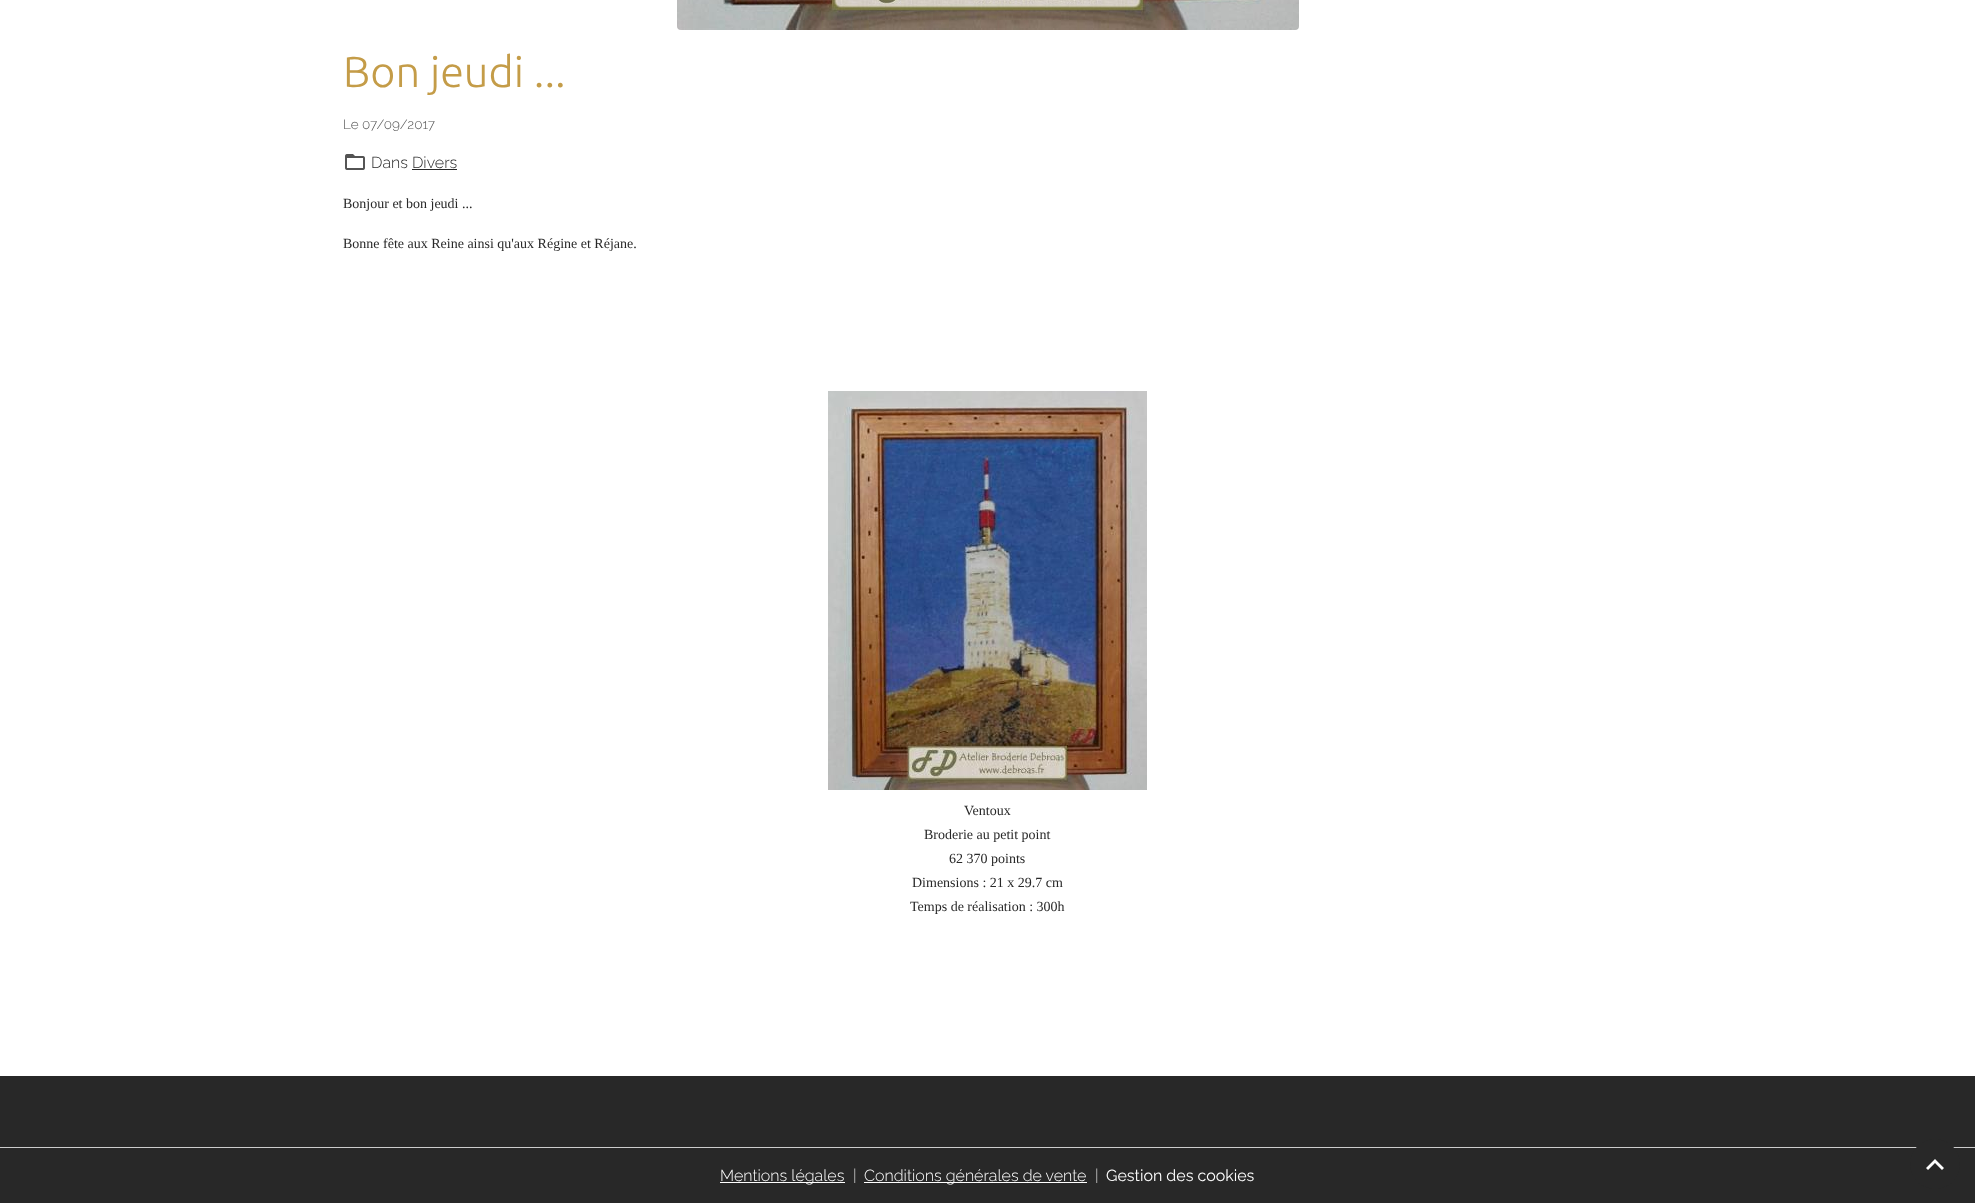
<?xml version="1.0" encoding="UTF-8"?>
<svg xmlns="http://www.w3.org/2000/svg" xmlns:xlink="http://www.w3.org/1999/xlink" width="1975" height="1204">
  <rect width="100%" height="100%" fill="#ffffff" />
  <image x="677" y="0" width="622" height="30" xlink:href="image1.png" />
  <image x="345" y="154" width="20" height="16" xlink:href="image2.png" />
  <rect x="412" y="169" width="45" height="1" fill="#282828" />
  <image x="828" y="391" width="319" height="399" xlink:href="image3.png" />
  <rect y="1076" width="1975" height="127" fill="#282828" />
  <rect y="1147" width="1975" height="1" fill="#cccccc" />
  <rect x="720" y="1182" width="125" height="1" fill="#ffffff" />
  <rect x="864" y="1182" width="223" height="1" fill="#ffffff" />
  <circle cx="1935" cy="1164" r="25" fill="#282828" />
  <path d="M 1935 1159 l 9 9 l -2 2 l -7 -7 l -7 7 l -2 -2 z" fill="#ffffff" />
  <text x="343" y="87" style="font-family: Ubuntu; font-size: 43.25px; font-weight: 300; fill: #c49c48">Bon jeudi ...</text>
  <text x="343" y="129" style="font-family: Raleway; font-size: 13.5px; font-weight: 300; fill: #535353">Le 07/09/2017</text>
  <text x="371" y="168" style="font-family: Raleway; font-size: 16px; font-weight: 300; fill: #282828">Dans Divers</text>
  <text x="343" y="208" style="font-family: Liberation Serif; font-size: 14px; fill: #282828">Bonjour et bon jeudi ...</text>
  <text x="343" y="248" style="font-family: Liberation Serif; font-size: 14px; fill: #282828">Bonne fête aux Reine ainsi qu'aux Régine et Réjane.</text>
  <text x="964" y="815" style="font-family: Liberation Serif; font-size: 14px; fill: #282828">Ventoux</text>
  <text x="924" y="839" style="font-family: Liberation Serif; font-size: 14px; fill: #282828">Broderie au petit point</text>
  <text x="949" y="863" style="font-family: Liberation Serif; font-size: 14px; fill: #282828">62 370 points</text>
  <text x="912" y="887" style="font-family: Liberation Serif; font-size: 14px; fill: #282828">Dimensions : 21 x 29.7 cm</text>
  <text x="910" y="911" style="font-family: Liberation Serif; font-size: 14px; fill: #282828">Temps de réalisation : 300h</text>
  <text x="720" y="1181" style="font-family: Raleway; font-size: 16px; font-weight: 300; fill: #ffffff">Mentions légales</text>
  <text x="853" y="1181" style="font-family: Raleway; font-size: 16px; font-weight: 300; fill: #d4d4d4">|</text>
  <text x="864" y="1181" style="font-family: Raleway; font-size: 16px; font-weight: 300; fill: #ffffff">Conditions générales de vente</text>
  <text x="1095" y="1181" style="font-family: Raleway; font-size: 16px; font-weight: 300; fill: #d4d4d4">|</text>
  <text x="1106" y="1181" style="font-family: Raleway; font-size: 16px; fill: #ffffff">Gestion des cookies</text>
</svg>
